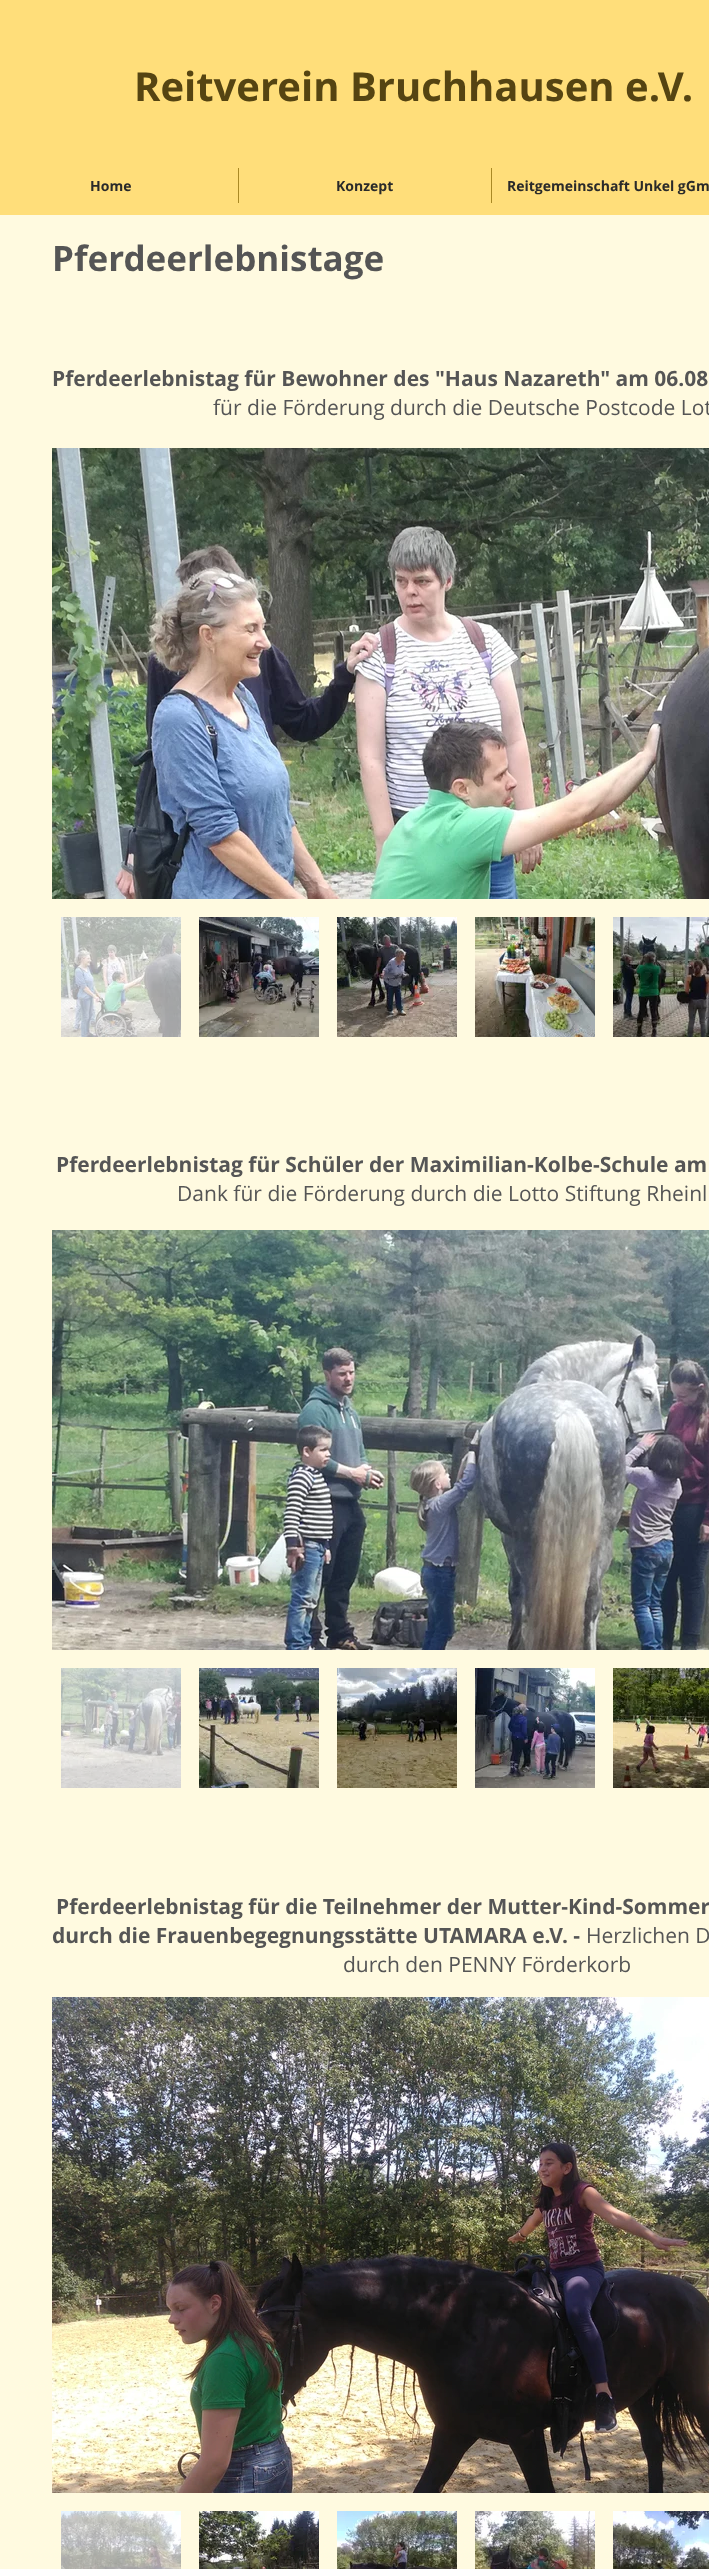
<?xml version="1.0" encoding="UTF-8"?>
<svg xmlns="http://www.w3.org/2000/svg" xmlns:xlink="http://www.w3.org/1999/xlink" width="709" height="2569">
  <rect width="100%" height="100%" fill="#fffae0" />
  <rect width="709" height="215" fill="#ffde7a" />
  <rect x="238" y="168" width="1" height="35" fill="#aa8924" />
  <rect x="491" y="168" width="1" height="35" fill="#aa8924" />
  <image x="52" y="448" width="657" height="451" xlink:href="image1.png" />
  <image x="61" y="917" width="120" height="120" xlink:href="image2.png" />
  <image x="199" y="917" width="120" height="120" xlink:href="image3.png" />
  <image x="337" y="917" width="120" height="120" xlink:href="image4.png" />
  <image x="475" y="917" width="120" height="120" xlink:href="image5.png" />
  <image x="613" y="917" width="96" height="120" xlink:href="image6.png" />
  <image x="52" y="1230" width="657" height="420" xlink:href="image7.png" />
  <image x="61" y="1668" width="120" height="120" xlink:href="image8.png" />
  <image x="199" y="1668" width="120" height="120" xlink:href="image9.png" />
  <image x="337" y="1668" width="120" height="120" xlink:href="image10.png" />
  <image x="475" y="1668" width="120" height="120" xlink:href="image11.png" />
  <image x="613" y="1668" width="96" height="120" xlink:href="image12.png" />
  <image x="52" y="1997" width="657" height="496" xlink:href="image13.png" />
  <image x="61" y="2511" width="120" height="58" xlink:href="image14.png" />
  <image x="199" y="2511" width="120" height="58" xlink:href="image15.png" />
  <image x="337" y="2511" width="120" height="58" xlink:href="image16.png" />
  <image x="475" y="2511" width="120" height="58" xlink:href="image17.png" />
  <image x="613" y="2511" width="96" height="58" xlink:href="image18.png" />
  <text x="134" y="101" style="font-family: Open Sans; font-size: 40px; font-weight: bold; fill: #554412">Reitverein Bruchhausen e.V.</text>
  <text x="90" y="191" style="font-family: Open Sans; font-size: 14px; font-weight: bold; fill: #2a2a2a">Home</text>
  <text x="336" y="191" style="font-family: Open Sans; font-size: 14px; font-weight: bold; fill: #2a2a2a">Konzept</text>
  <text x="507" y="191" style="font-family: Open Sans; font-size: 14px; font-weight: bold; fill: #2a2a2a">Reitgemeinschaft Unkel gGm</text>
  <text x="52" y="271" style="font-family: Open Sans; font-size: 35px; font-weight: bold; fill: #555555">Pferdeerlebnistage</text>
  <text x="52" y="386" style="font-family: Open Sans; font-size: 21px; font-weight: bold; fill: #555555">Pferdeerlebnistag für Bewohner des "Haus Nazareth" am 06.08</text>
  <text x="213" y="415" style="font-family: Open Sans; font-size: 21px; fill: #555555">für die Förderung durch die Deutsche Postcode Lot</text>
  <text x="56" y="1172" style="font-family: Open Sans; font-size: 21px; font-weight: bold; fill: #555555">Pferdeerlebnistag für Schüler der Maximilian-Kolbe-Schule am</text>
  <text x="177" y="1201" style="font-family: Open Sans; font-size: 21px; fill: #555555">Dank für die Förderung durch die Lotto Stiftung Rheinl</text>
  <text x="56" y="1914" style="font-family: Open Sans; font-size: 21px; font-weight: bold; fill: #555555">Pferdeerlebnistag für die Teilnehmer der Mutter-Kind-Sommer</text>
  <text x="52" y="1943" style="font-family: Open Sans; font-size: 21px; font-weight: bold; fill: #555555">durch die Frauenbegegnungsstätte UTAMARA e.V. -</text>
  <text x="586" y="1943" style="font-family: Open Sans; font-size: 21px; fill: #555555">Herzlichen D</text>
  <text x="343" y="1972" style="font-family: Open Sans; font-size: 21px; fill: #555555">durch den PENNY Förderkorb</text>
</svg>
